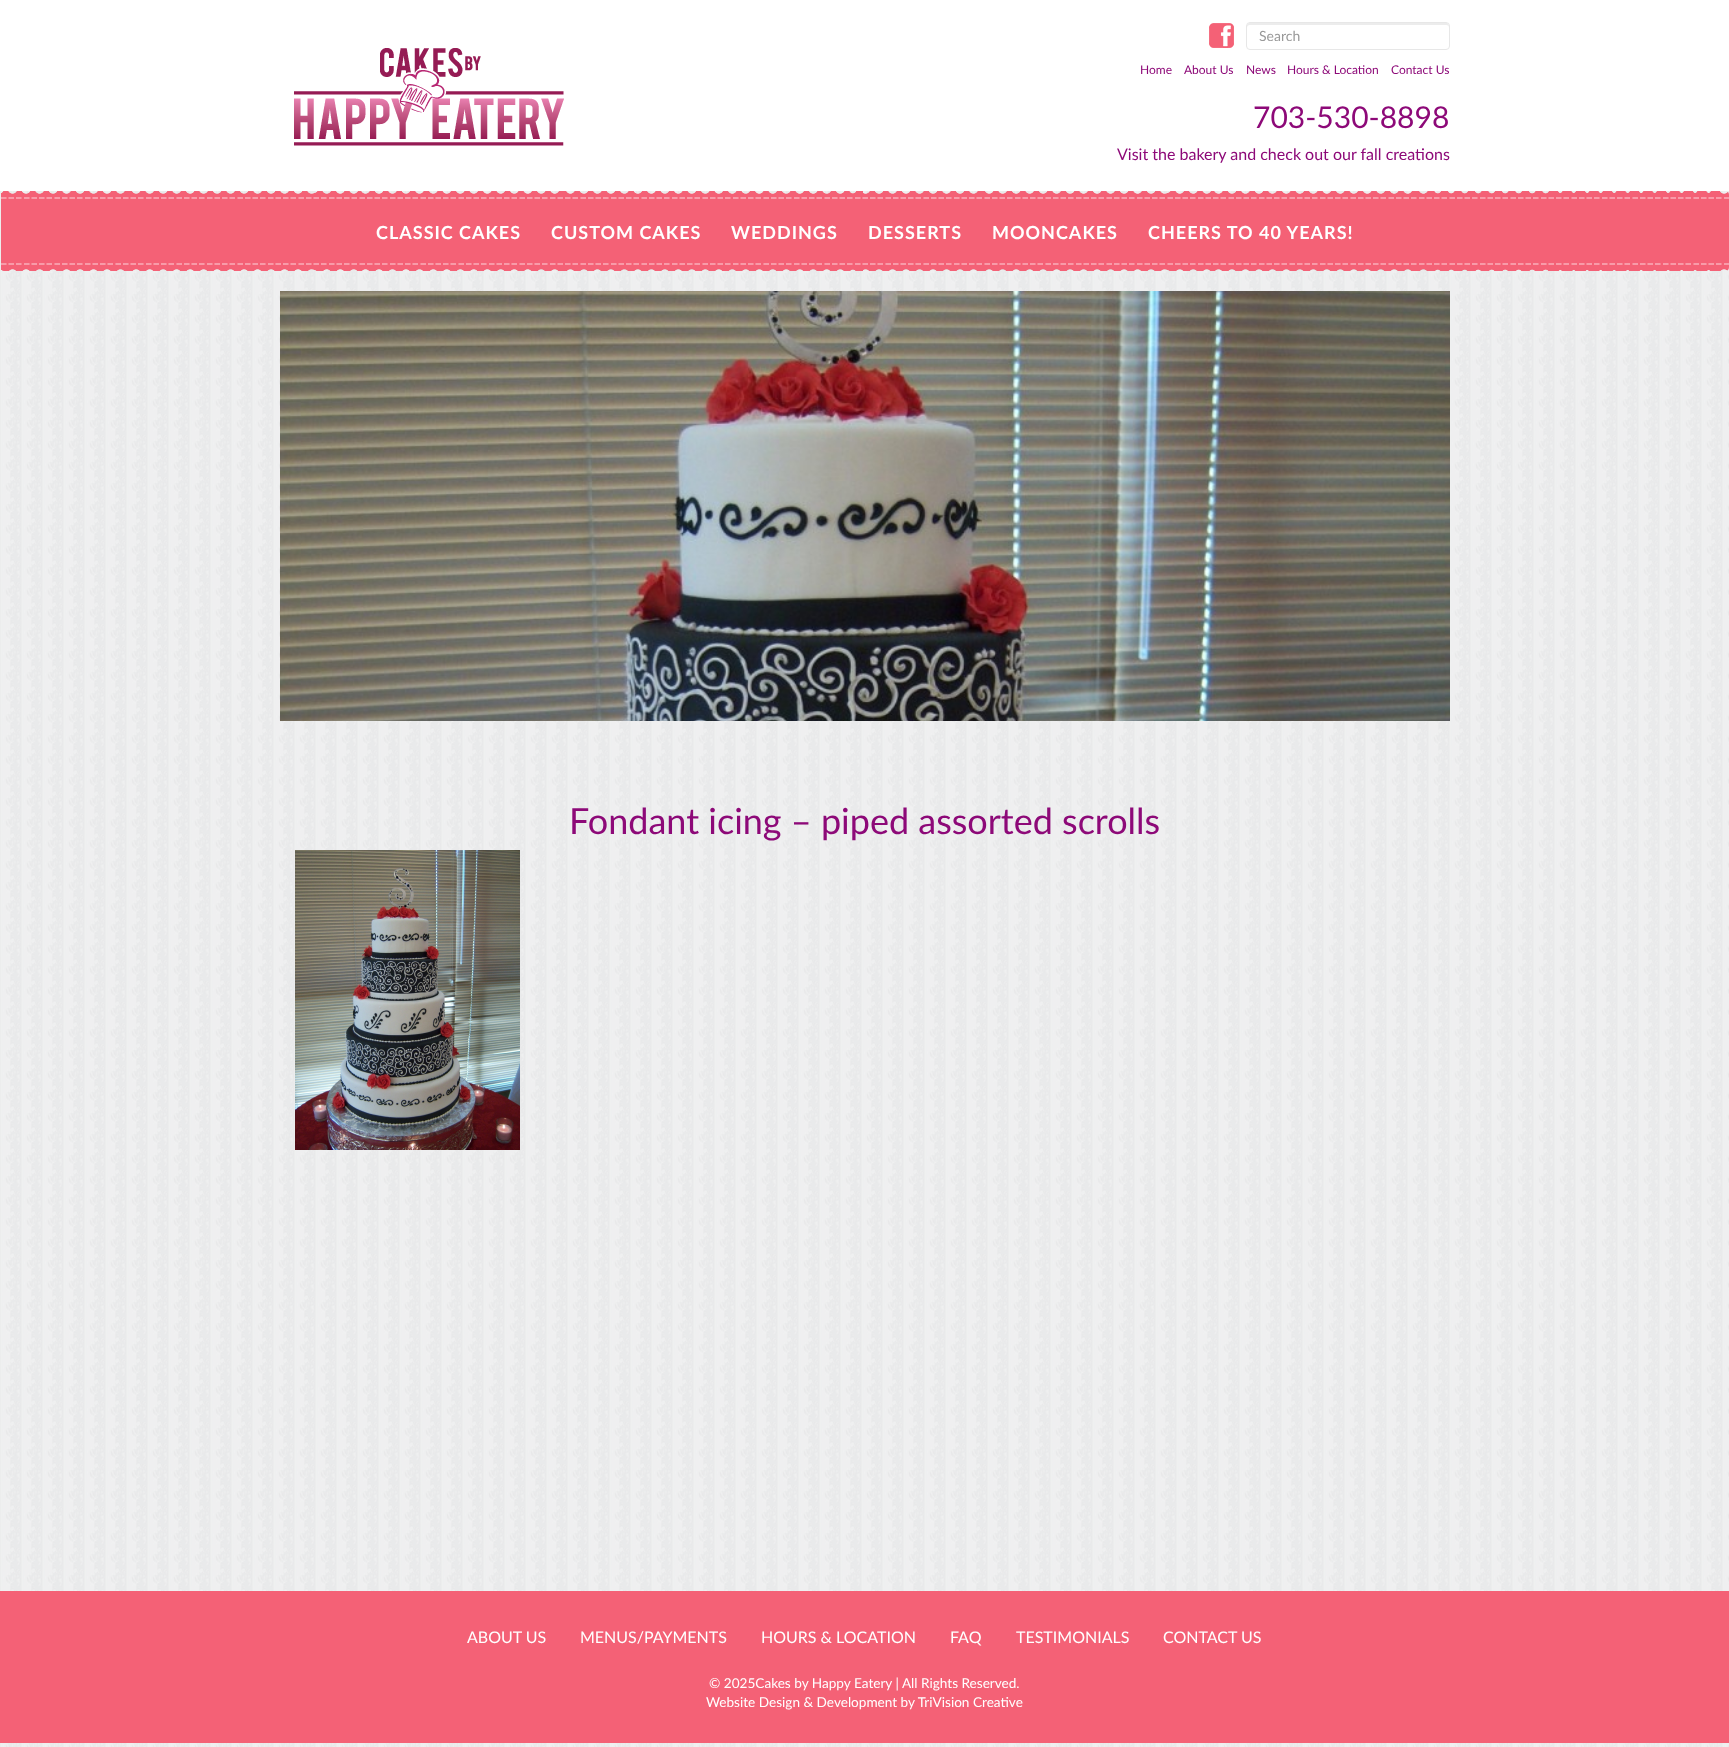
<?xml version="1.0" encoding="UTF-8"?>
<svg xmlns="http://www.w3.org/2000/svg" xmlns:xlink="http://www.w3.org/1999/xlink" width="1729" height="1747">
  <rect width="100%" height="100%" fill="#ffffff" />
  <image x="0" y="191" width="1729" height="1556" xlink:href="image1.png" />
  <image x="294" y="48" width="270" height="98" xlink:href="image2.png" />
  <image x="1209" y="23" width="25" height="25" xlink:href="image3.png" />
  <path d="M 1250 25 h 196 c 2 0 3 1 3 3 c 0 -2 0 -4 -2 -5 h -197 c -3 0 -3 3 -3 5 c 0 -2 1 -3 3 -3 z" fill="#ececec" />
  <rect x="1246.5" y="22.5" width="203" height="27" rx="3.5" fill="none" stroke="#e7e7e7" />
  <image x="1" y="191" width="1728" height="80" xlink:href="image4.png" />
  <image x="280" y="291" width="1170" height="430" xlink:href="image5.png" />
  <image x="295" y="850" width="225" height="300" xlink:href="image6.png" />
  <rect y="1591" width="1729" height="152" fill="#f46176" />
  <text x="1259" y="41" style="font-family: Lato; font-size: 14px; fill: #999999">Search</text>
  <text x="1140" y="74" style="font-family: Lato; font-size: 12px; fill: #8d0978">Home</text>
  <text x="1184" y="74" style="font-family: Lato; font-size: 12px; fill: #8d0978">About Us</text>
  <text x="1246" y="74" style="font-family: Lato; font-size: 12px; fill: #8d0978">News</text>
  <text x="1287" y="74" style="font-family: Lato; font-size: 12px; fill: #8d0978">Hours &amp; Location</text>
  <text x="1391" y="74" style="font-family: Lato; font-size: 12px; fill: #8d0978">Contact Us</text>
  <text x="1253" y="128" style="font-family: Lato; font-size: 30px; fill: #8d0978">703-530-8898</text>
  <text x="1117" y="160" style="font-family: Lato; font-size: 16px; fill: #8d0978">Visit the bakery and check out our fall creations</text>
  <text x="376" y="239" style="font-family: Lato; font-size: 18px; font-weight: bold; letter-spacing: 1px; fill: #ffffff">CLASSIC CAKES</text>
  <text x="551" y="239" style="font-family: Lato; font-size: 18px; font-weight: bold; letter-spacing: 1px; fill: #ffffff">CUSTOM CAKES</text>
  <text x="731" y="239" style="font-family: Lato; font-size: 18px; font-weight: bold; letter-spacing: 1px; fill: #ffffff">WEDDINGS</text>
  <text x="868" y="239" style="font-family: Lato; font-size: 18px; font-weight: bold; letter-spacing: 1px; fill: #ffffff">DESSERTS</text>
  <text x="992" y="239" style="font-family: Lato; font-size: 18px; font-weight: bold; letter-spacing: 1px; fill: #ffffff">MOONCAKES</text>
  <text x="1148" y="239" style="font-family: Lato; font-size: 18px; font-weight: bold; letter-spacing: 1px; fill: #ffffff">CHEERS TO 40 YEARS!</text>
  <text x="569" y="834" style="font-family: Lato; font-size: 36px; fill: #8d0978">Fondant icing – piped assorted scrolls</text>
  <text x="467" y="1643" style="font-family: Lato; font-size: 16px; fill: #ffffff">ABOUT US</text>
  <text x="580" y="1643" style="font-family: Lato; font-size: 16px; fill: #ffffff">MENUS/PAYMENTS</text>
  <text x="761" y="1643" style="font-family: Lato; font-size: 16px; fill: #ffffff">HOURS &amp; LOCATION</text>
  <text x="950" y="1643" style="font-family: Lato; font-size: 16px; fill: #ffffff">FAQ</text>
  <text x="1016" y="1643" style="font-family: Lato; font-size: 16px; fill: #ffffff">TESTIMONIALS</text>
  <text x="1163" y="1643" style="font-family: Lato; font-size: 16px; fill: #ffffff">CONTACT US</text>
  <text x="709" y="1688" style="font-family: Lato; font-size: 13.6px; fill: #ffffff">© 2025Cakes by Happy Eatery | All Rights Reserved.</text>
  <text x="706" y="1707" style="font-family: Lato; font-size: 13.6px; fill: #ffffff">Website Design &amp; Development by TriVision Creative</text>
</svg>
